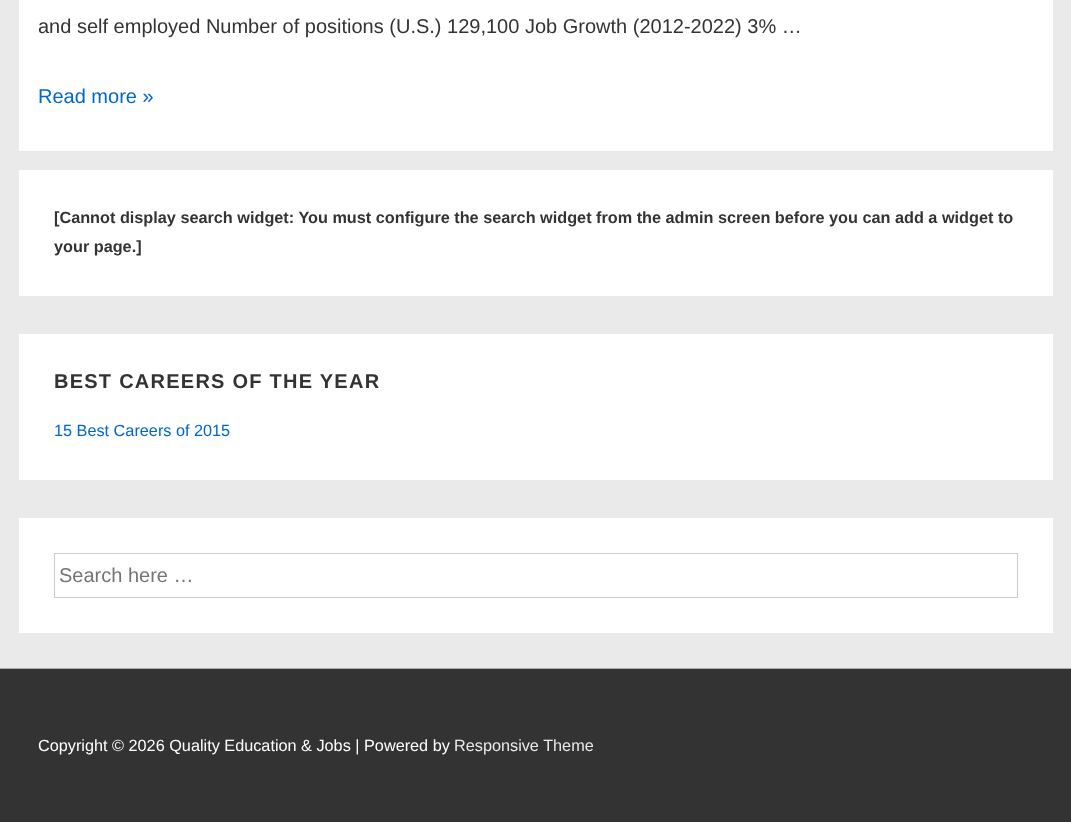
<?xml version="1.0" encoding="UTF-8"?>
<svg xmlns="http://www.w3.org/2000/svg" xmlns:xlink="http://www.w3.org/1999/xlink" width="1071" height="822">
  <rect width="100%" height="100%" fill="#eaeaea" />
  <rect x="19" width="1034" height="151" fill="#ffffff" />
  <rect x="19" y="170" width="1034" height="126" fill="#ffffff" />
  <rect x="19" y="334" width="1034" height="146" fill="#ffffff" />
  <rect x="19" y="518" width="1034" height="115" fill="#ffffff" />
  <rect x="54.5" y="553.5" width="963" height="44" fill="none" stroke="#cccccc" />
  <rect y="669" width="1071" height="153" fill="#333333" />
  <rect y="668" width="1071" height="1" fill="#aaaaaa" />
  <text x="38" y="33" style="font-family: Liberation Sans; font-size: 20px; fill: #333333">and self employed Number of positions (U.S.) 129,100 Job Growth (2012-2022) 3% …</text>
  <text x="38" y="103" style="font-family: Liberation Sans; font-size: 20px; fill: #0066cc">Read more »</text>
  <text x="54" y="223" style="font-family: Liberation Sans; font-size: 16.25px; font-weight: bold; fill: #333333">[Cannot display search widget: You must configure the search widget from the admin screen before you can add a widget to</text>
  <text x="54" y="252" style="font-family: Liberation Sans; font-size: 16.25px; font-weight: bold; fill: #333333">your page.]</text>
  <text x="54" y="388" style="font-family: Liberation Sans; font-size: 20px; font-weight: bold; letter-spacing: 1.25px; fill: #333333">BEST CAREERS OF THE YEAR</text>
  <text x="54" y="436" style="font-family: Liberation Sans; font-size: 16.25px; fill: #0066cc">15 Best Careers of 2015</text>
  <text x="59" y="582" style="font-family: Liberation Sans; font-size: 20px; fill: #757575">Search here …</text>
  <text x="38" y="751" style="font-family: Liberation Sans; font-size: 16.25px; fill: #ffffff">Copyright © 2026 Quality Education &amp; Jobs | Powered by</text>
  <text x="454" y="751" style="font-family: Liberation Sans; font-size: 16.25px; fill: #eaeaea">Responsive Theme</text>
</svg>
